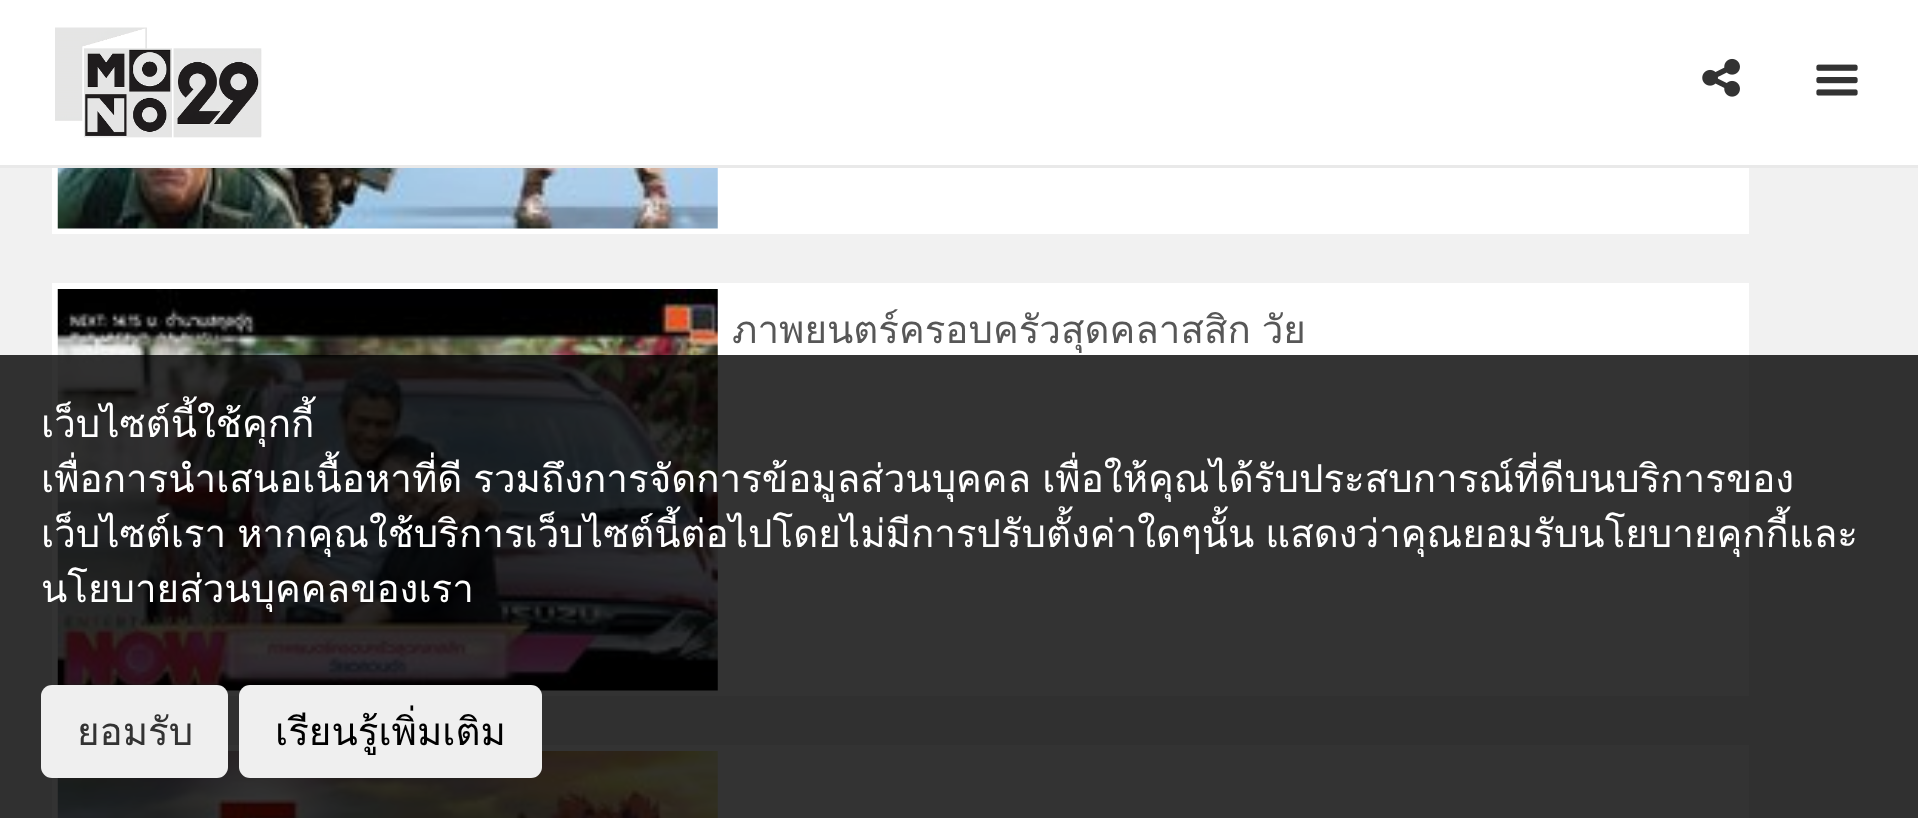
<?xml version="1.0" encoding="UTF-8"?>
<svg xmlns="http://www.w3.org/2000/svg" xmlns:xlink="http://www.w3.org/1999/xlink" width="1918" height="818">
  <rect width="100%" height="100%" fill="#f1f1f1" />
  <rect width="1918" height="165" fill="#ffffff" />
  <rect y="165" width="1918" height="3" fill="#e9e9e9" />
  <image x="55" y="27" width="207" height="111" xlink:href="image1.png" />
  <image x="1702" y="58" width="38" height="39" xlink:href="image2.png" />
  <image x="1816" y="64" width="42" height="32" xlink:href="image3.png" />
  <rect x="52" y="168" width="1697" height="66" fill="#ffffff" />
  <image x="57" y="168" width="661" height="61" xlink:href="image4.png" />
  <rect x="52" y="283" width="1697" height="413" fill="#ffffff" />
  <image x="57" y="289" width="661" height="402" xlink:href="image5.png" />
  <rect x="52" y="745" width="1697" height="73" fill="#ffffff" />
  <image x="57" y="751" width="661" height="67" xlink:href="image6.png" />
  <rect y="355" width="1918" height="463" fill="#000000" fill-opacity="0.8" />
  <rect x="41" y="685" width="187" height="93" rx="11" fill="#efefef" />
  <rect x="239" y="685" width="303" height="93" rx="11" fill="#efefef" />
  <text x="732" y="343" word-spacing="-2" style="font-family: Loma; font-size: 38.5px; fill: #575757">ภาพยนตร์ครอบครัวสุดคลาสสิก วัย</text>
  <text x="41" y="437" style="font-family: Loma; font-size: 38.5px; fill: #ffffff">เว็บไซต์นี้ใช้คุกกี้</text>
  <text x="41" y="492" word-spacing="-2" style="font-family: Loma; font-size: 38.5px; fill: #ffffff">เพื่อการนำเสนอเนื้อหาที่ดี รวมถึงการจัดการข้อมูลส่วนบุคคล เพื่อให้คุณได้รับประสบการณ์ที่ดีบนบริการของ</text>
  <text x="41" y="547" word-spacing="-2" style="font-family: Loma; font-size: 38.5px; fill: #ffffff">เว็บไซต์เรา หากคุณใช้บริการเว็บไซต์นี้ต่อไปโดยไม่มีการปรับตั้งค่าใดๆนั้น แสดงว่าคุณยอมรับนโยบายคุกกี้และ</text>
  <text x="41" y="602" style="font-family: Loma; font-size: 38.5px; fill: #ffffff">นโยบายส่วนบุคคลของเรา</text>
  <text x="77" y="745" style="font-family: Loma; font-size: 38.5px; fill: #333333">ยอมรับ</text>
  <text x="275" y="745" style="font-family: Loma; font-size: 38.5px; fill: #000000">เรียนรู้เพิ่มเติม</text>
</svg>
